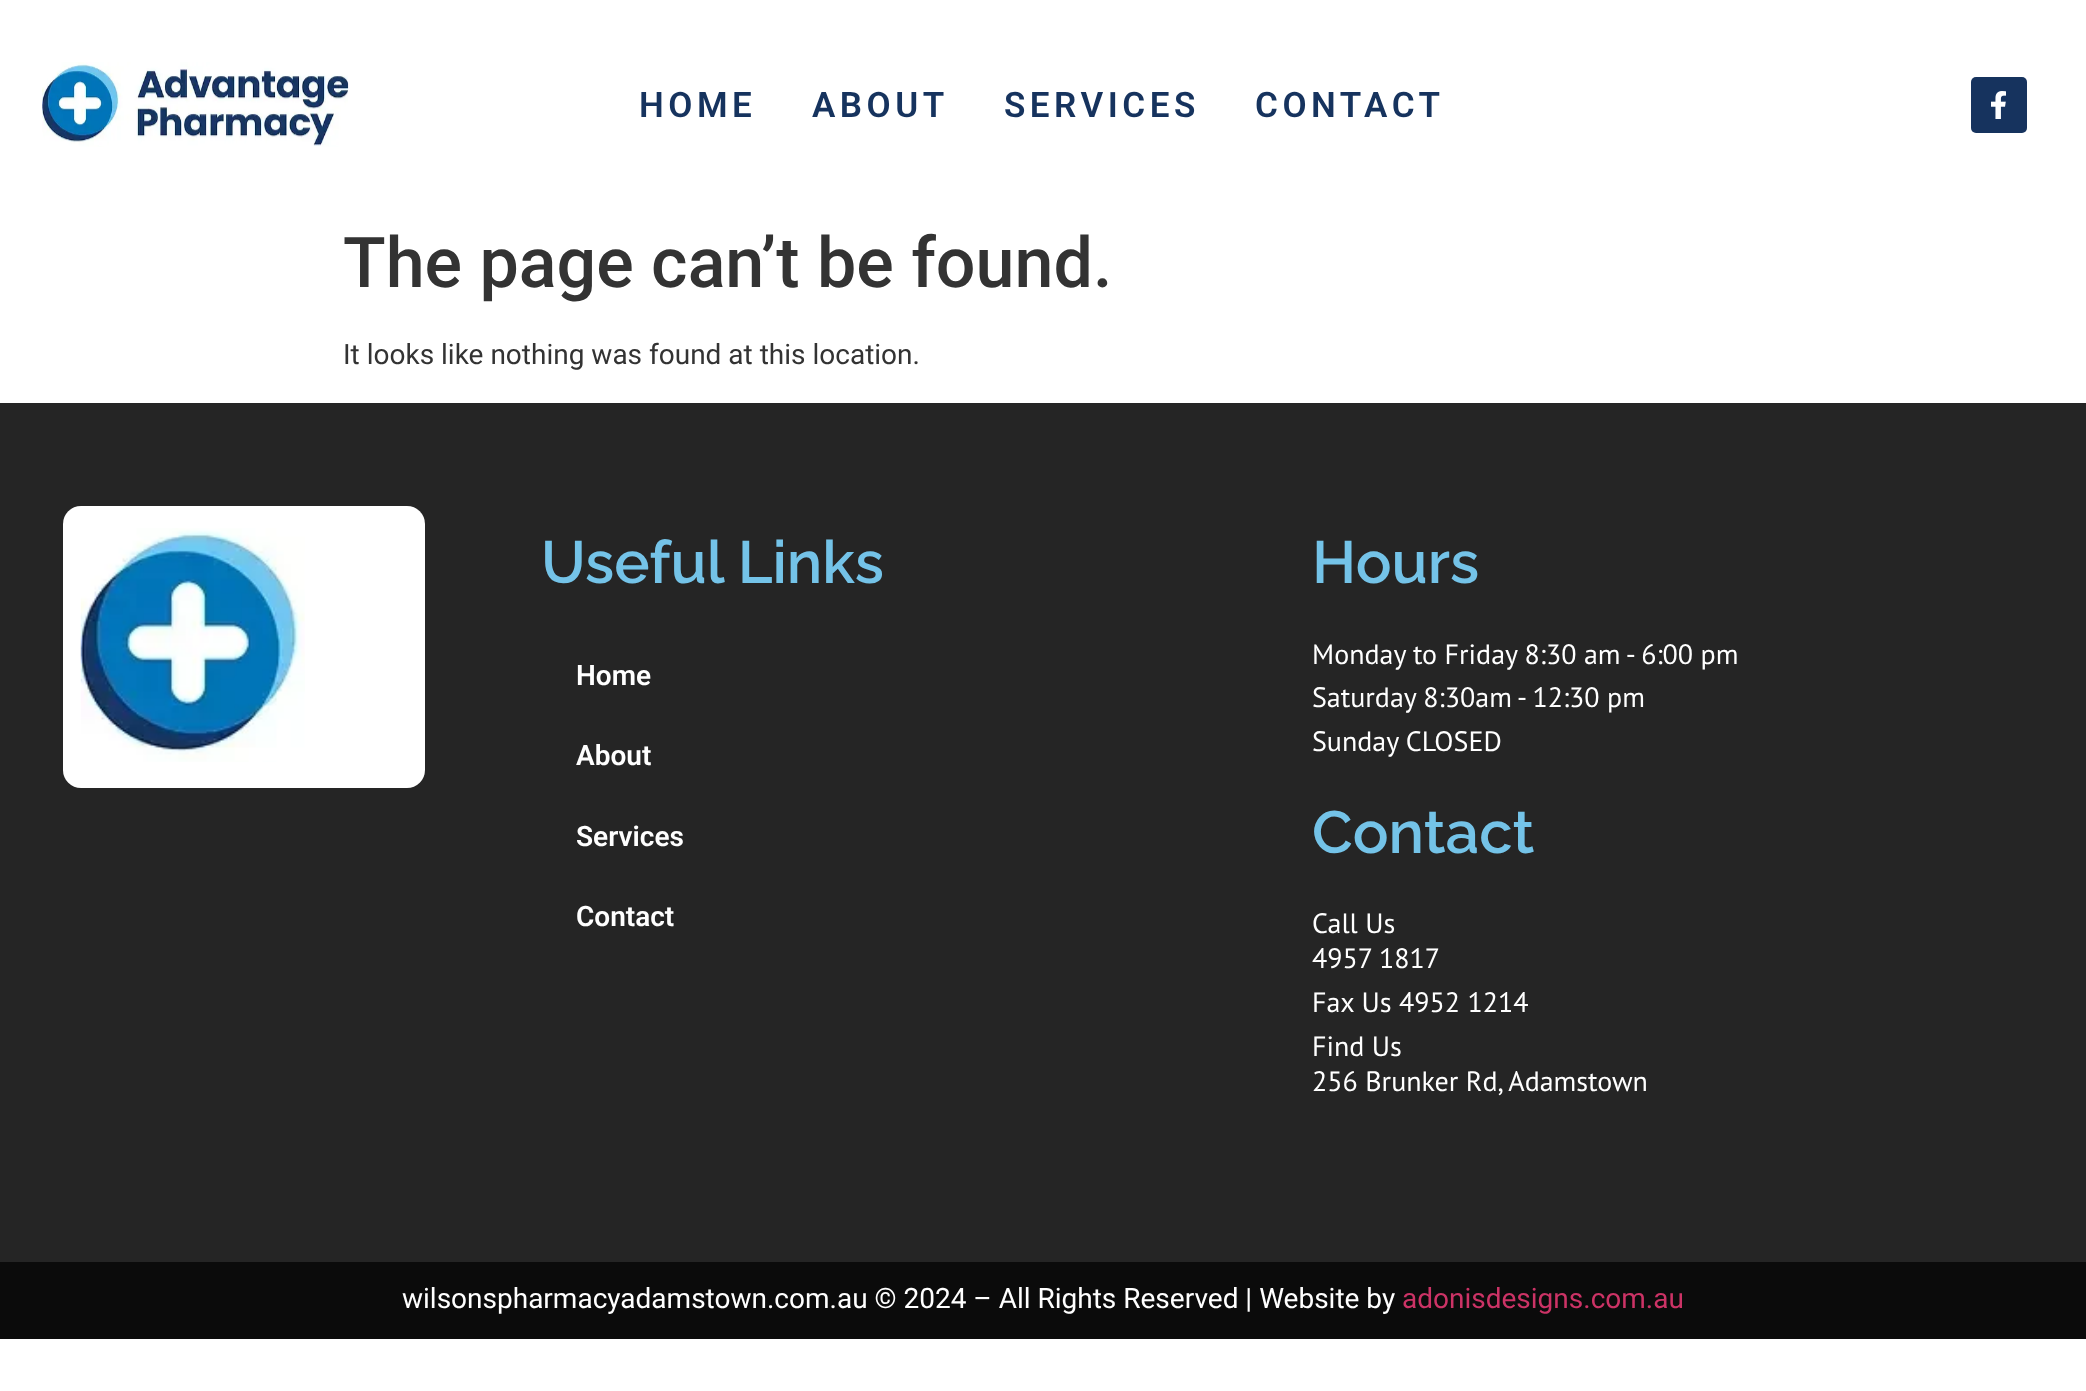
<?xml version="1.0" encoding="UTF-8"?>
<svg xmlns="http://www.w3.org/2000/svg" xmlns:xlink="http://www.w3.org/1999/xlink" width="2086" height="1391">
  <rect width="100%" height="100%" fill="#ffffff" />
  <image x="42" y="62" width="307" height="85" xlink:href="image1.png" />
  <rect x="1971" y="77" width="56" height="56" rx="5" fill="#16335e" />
  <image x="1991" y="91" width="15" height="28" xlink:href="image2.png" />
  <rect y="1262" width="2086" height="77" fill="#0b0b0b" />
  <rect y="403" width="2086" height="859" fill="#252525" />
  <rect x="63" y="506" width="362" height="282" rx="18" fill="#ffffff" />
  <image x="80" y="528" width="225" height="234" xlink:href="image3.png" />
  <text x="639" y="117" style="font-family: Roboto; font-size: 35px; font-weight: 600; letter-spacing: 4.5px; fill: #16335e">HOME</text>
  <text x="812" y="117" style="font-family: Roboto; font-size: 35px; font-weight: 600; letter-spacing: 4.5px; fill: #16335e">ABOUT</text>
  <text x="1004" y="117" style="font-family: Roboto; font-size: 35px; font-weight: 600; letter-spacing: 4.5px; fill: #16335e">SERVICES</text>
  <text x="1255" y="117" style="font-family: Roboto; font-size: 35px; font-weight: 600; letter-spacing: 4.5px; fill: #16335e">CONTACT</text>
  <text x="343" y="287" style="font-family: Roboto; font-size: 70px; font-weight: 500; fill: #333333">The page can’t be found.</text>
  <text x="343" y="364" style="font-family: Roboto; font-size: 28px; fill: #333333">It looks like nothing was found at this location.</text>
  <text x="541" y="583" style="font-family: Raleway; font-size: 59.5px; font-weight: 600; fill: #74c3e8">Useful Links</text>
  <text x="576" y="685" style="font-family: Roboto; font-size: 28px; font-weight: 600; fill: #ffffff">Home</text>
  <text x="576" y="765" style="font-family: Roboto; font-size: 28px; font-weight: 600; fill: #ffffff">About</text>
  <text x="576" y="846" style="font-family: Roboto; font-size: 28px; font-weight: 600; fill: #ffffff">Services</text>
  <text x="576" y="926" style="font-family: Roboto; font-size: 28px; font-weight: 600; fill: #ffffff">Contact</text>
  <text x="1312" y="583" style="font-family: Raleway; font-size: 59.5px; font-weight: 600; fill: #74c3e8">Hours</text>
  <text x="1312" y="664" style="font-family: PT Sans; font-size: 28px; fill: #ffffff">Monday to Friday 8:30 am - 6:00 pm</text>
  <text x="1312" y="707" style="font-family: PT Sans; font-size: 28px; fill: #ffffff">Saturday 8:30am - 12:30 pm</text>
  <text x="1312" y="751" style="font-family: PT Sans; font-size: 28px; fill: #ffffff">Sunday CLOSED</text>
  <text x="1312" y="853" style="font-family: Raleway; font-size: 59.5px; font-weight: 600; fill: #74c3e8">Contact</text>
  <text x="1312" y="933" style="font-family: PT Sans; font-size: 28px; fill: #ffffff">Call Us</text>
  <text x="1312" y="968" style="font-family: PT Sans; font-size: 28px; fill: #ffffff">4957 1817</text>
  <text x="1312" y="1012" style="font-family: PT Sans; font-size: 28px; fill: #ffffff">Fax Us 4952 1214</text>
  <text x="1312" y="1056" style="font-family: PT Sans; font-size: 28px; fill: #ffffff">Find Us</text>
  <text x="1312" y="1091" style="font-family: PT Sans; font-size: 28px; fill: #ffffff">256 Brunker Rd, Adamstown</text>
  <text x="402" y="1308" style="font-family: Roboto; font-size: 28px; fill: #ffffff">wilsonspharmacyadamstown.com.au © 2024 – All Rights Reserved | Website by</text>
  <text x="1402" y="1308" style="font-family: Roboto; font-size: 28px; fill: #cc3366">adonisdesigns.com.au</text>
</svg>
